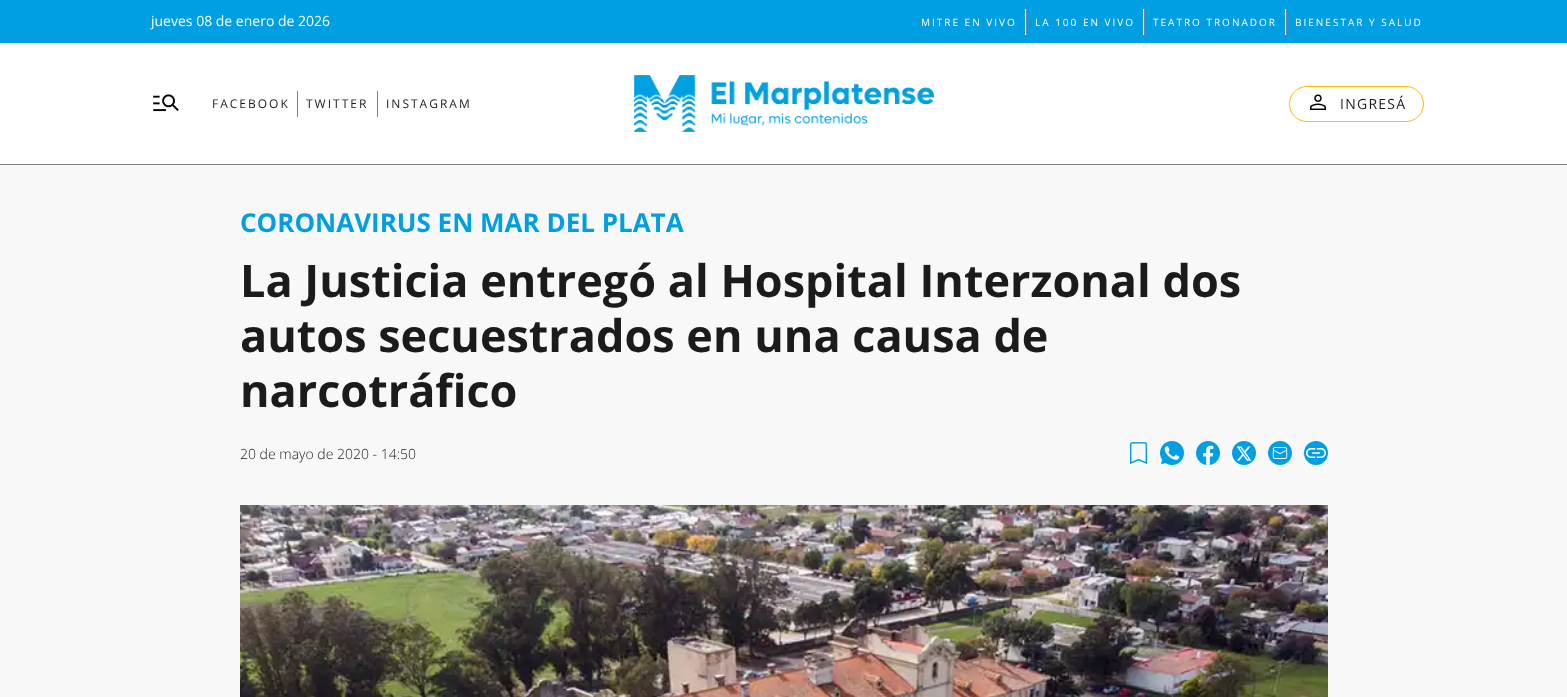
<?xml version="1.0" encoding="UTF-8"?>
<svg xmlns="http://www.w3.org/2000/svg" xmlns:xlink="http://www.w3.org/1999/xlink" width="1567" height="697">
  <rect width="100%" height="100%" fill="#ffffff" />
  <rect width="1567" height="43" fill="#009fe3" />
  <rect x="1025" y="9" width="1" height="26" fill="#ffffff" />
  <rect x="1143" y="9" width="1" height="26" fill="#ffffff" />
  <rect x="1026" y="9" width="1" height="26" fill="#818181" />
  <rect x="1285" y="9" width="1" height="26" fill="#ffffff" />
  <rect x="1144" y="9" width="1" height="26" fill="#818181" />
  <rect x="1286" y="9" width="1" height="26" fill="#818181" />
  <rect y="164" width="1567" height="1" fill="#818181" />
  <image x="153" y="94" width="26" height="18" xlink:href="image1.png" />
  <rect x="297" y="91" width="1" height="26" fill="#818181" />
  <rect x="377" y="91" width="1" height="26" fill="#818181" />
  <image x="634" y="75" width="300" height="57" xlink:href="image2.png" />
  <rect x="1289.5" y="86.5" width="134" height="35" rx="17.5" fill="none" stroke="#fbbc04" />
  <image x="1310" y="94" width="16" height="16" xlink:href="image3.png" />
  <rect y="165" width="1567" height="532" fill="#f8f8f8" />
  <image x="1130" y="442" width="18" height="22" xlink:href="image4.png" />
  <image x="1160" y="441" width="24" height="24" xlink:href="image5.png" />
  <image x="1196" y="441" width="24" height="24" xlink:href="image6.png" />
  <image x="1232" y="441" width="24" height="24" xlink:href="image7.png" />
  <image x="1268" y="441" width="24" height="24" xlink:href="image8.png" />
  <circle cx="1316" cy="453" r="12" fill="#009fe3" />
  <image x="1306" y="448" width="20" height="10" xlink:href="image9.png" />
  <image x="240" y="505" width="1088" height="192" xlink:href="image10.png" />
  <text x="151" y="26" style="font-family: Open Sans; font-size: 14px; fill: #ffffff">jueves 08 de enero de 2026</text>
  <text x="921" y="26" style="font-family: Open Sans; font-size: 10px; letter-spacing: 2px; fill: #ffffff">MITRE EN VIVO</text>
  <text x="1035" y="26" style="font-family: Open Sans; font-size: 10px; letter-spacing: 2px; fill: #ffffff">LA 100 EN VIVO</text>
  <text x="1153" y="26" style="font-family: Open Sans; font-size: 10px; letter-spacing: 2px; fill: #ffffff">TEATRO TRONADOR</text>
  <text x="1295" y="26" style="font-family: Open Sans; font-size: 10px; letter-spacing: 2px; fill: #ffffff">BIENESTAR Y SALUD</text>
  <text x="212" y="108" style="font-family: Open Sans; font-size: 12px; letter-spacing: 2px; fill: #1b1b1b">FACEBOOK</text>
  <text x="306" y="108" style="font-family: Open Sans; font-size: 12px; letter-spacing: 2px; fill: #1b1b1b">TWITTER</text>
  <text x="386" y="108" style="font-family: Open Sans; font-size: 12px; letter-spacing: 2px; fill: #1b1b1b">INSTAGRAM</text>
  <text x="1340" y="109" style="font-family: Open Sans; font-size: 14px; letter-spacing: 1.25px; fill: #1b1b1b">INGRESÁ</text>
  <text x="240" y="232" style="font-family: Open Sans; font-size: 26px; font-weight: bold; fill: #009fe3">CORONAVIRUS EN MAR DEL PLATA</text>
  <text x="240" y="297" style="font-family: Open Sans; font-size: 45px; font-weight: bold; fill: #1b1b1b">La Justicia entregó al Hospital Interzonal dos</text>
  <text x="240" y="352" style="font-family: Open Sans; font-size: 45px; font-weight: bold; fill: #1b1b1b">autos secuestrados en una causa de</text>
  <text x="240" y="407" style="font-family: Open Sans; font-size: 45px; font-weight: bold; fill: #1b1b1b">narcotráfico</text>
  <text x="240" y="459" style="font-family: Open Sans; font-size: 14px; font-weight: 300; fill: #1b1b1b">20 de mayo de 2020 - 14:50</text>
</svg>
